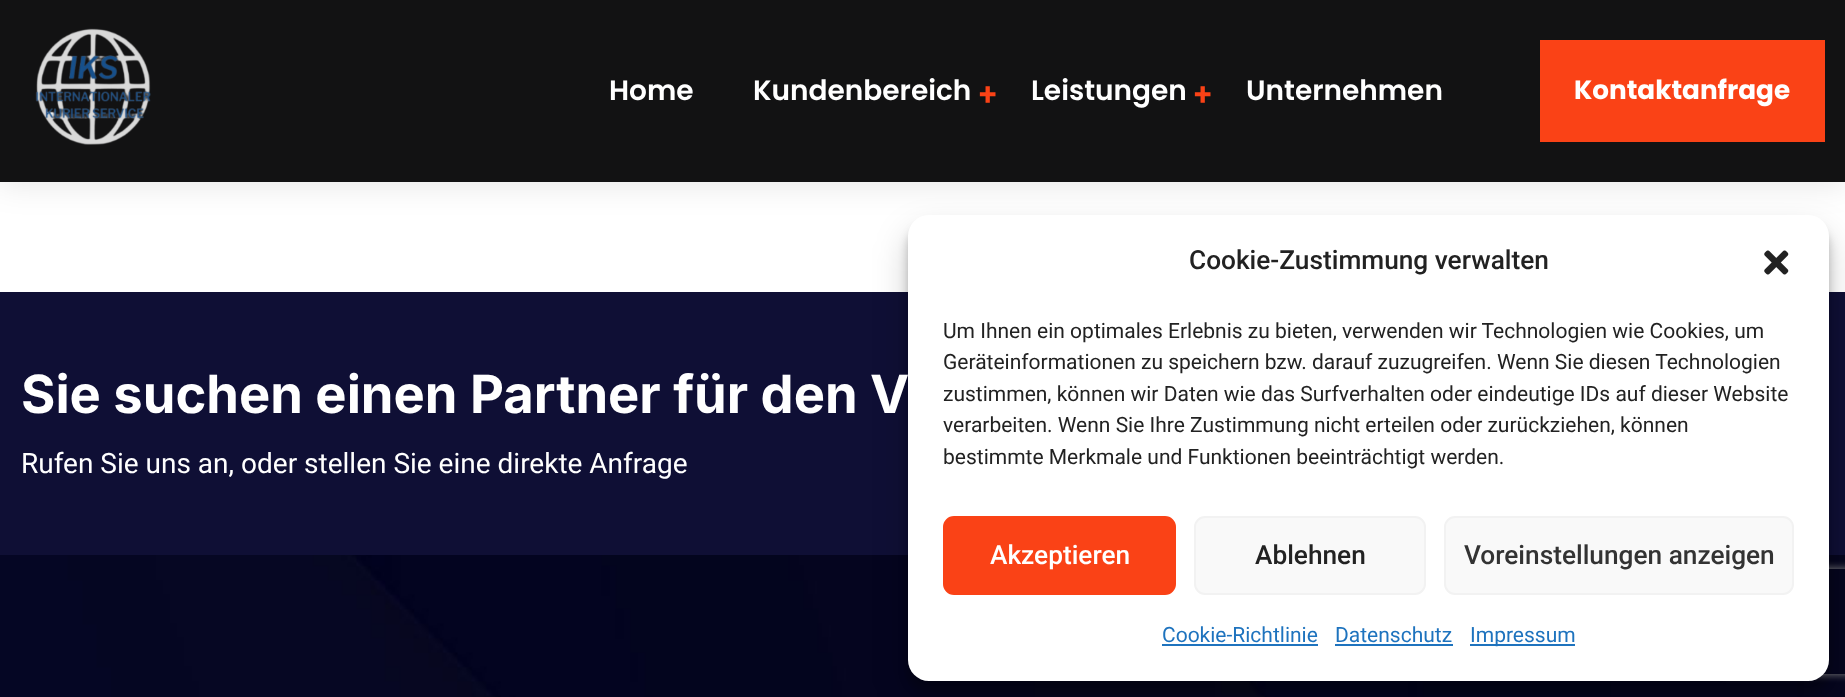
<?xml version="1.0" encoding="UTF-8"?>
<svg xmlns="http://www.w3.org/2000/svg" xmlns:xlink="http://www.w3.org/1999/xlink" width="1845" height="697">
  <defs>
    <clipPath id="clip1"><path d="M 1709 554 h 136 v 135 h -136 z m 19 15 h 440 c 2 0 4 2 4 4 v 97 c 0 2 -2 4 -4 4 h -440 c -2 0 -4 -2 -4 -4 v -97 c 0 -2 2 -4 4 -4 z" clip-rule="evenodd" /></clipPath>
  </defs>
  <rect width="100%" height="100%" fill="#ffffff" />
  <rect x="-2" y="-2" width="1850" height="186" fill="#000000" fill-opacity="0.1" filter="blur(16px)" />
  <rect width="1845" height="182" fill="#121213" />
  <image x="35" y="28" width="116" height="117" xlink:href="image1.png" />
  <rect x="1540" y="40" width="285" height="102" fill="#fa4216" />
  <image x="0" y="555" width="1845" height="142" xlink:href="image2.png" />
  <rect y="292" width="1845" height="263" fill="#0f0f35" />
  <rect x="908" y="226" width="921" height="465" rx="21" fill="#000000" fill-opacity="0.23" filter="blur(5px)" />
  <rect x="908" y="233" width="921" height="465" rx="21" fill="#000000" fill-opacity="0.19" filter="blur(17.5px)" />
  <g clip-path="url(#clip1)">
    <rect x="1724" y="569" width="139" height="105" rx="4" fill="#808080" filter="blur(4.5px)" />
  </g>
  <rect x="908" y="215" width="921" height="466" rx="21" fill="#ffffff" />
  <image x="1764" y="250" width="25" height="25" xlink:href="image3.png" />
  <rect x="944" y="517" width="231" height="77" rx="10" fill="#fa4216" stroke="#fa4216" stroke-width="2" />
  <rect x="1195" y="517" width="230" height="77" rx="10" fill="#f9f9f9" stroke="#f2f2f2" stroke-width="2" />
  <rect x="1445" y="517" width="348" height="77" rx="10" fill="#f9f9f9" stroke="#f2f2f2" stroke-width="2" />
  <rect x="1162" y="644" width="156" height="2" fill="#1e73be" />
  <rect x="1335" y="644" width="118" height="2" fill="#1e73be" />
  <rect x="1470" y="644" width="105" height="2" fill="#1e73be" />
  <text x="609" y="100" style="font-family: Poppins; font-size: 28px; font-weight: 600; fill: #ffffff">Home</text>
  <text x="753" y="100" style="font-family: Poppins; font-size: 28px; font-weight: 600; fill: #ffffff">Kundenbereich</text>
  <text x="979" y="105" style="font-family: Roboto; font-size: 32px; font-weight: bold; fill: #fa4216">+</text>
  <text x="1031" y="100" style="font-family: Poppins; font-size: 28px; font-weight: 600; fill: #ffffff">Leistungen</text>
  <text x="1194" y="105" style="font-family: Roboto; font-size: 32px; font-weight: bold; fill: #fa4216">+</text>
  <text x="1246" y="100" style="font-family: Poppins; font-size: 28px; font-weight: 600; fill: #ffffff">Unternehmen</text>
  <text x="1574" y="99" style="font-family: Poppins; font-size: 26.25px; font-weight: bold; fill: #ffffff">Kontaktanfrage</text>
  <text x="21" y="413" style="font-family: Inter; font-size: 52.5px; font-weight: bold; fill: #ffffff">Sie suchen einen Partner für den V</text>
  <text x="21" y="473" style="font-family: Roboto; font-size: 28px; fill: #ffffff">Rufen Sie uns an, oder stellen Sie eine direkte Anfrage</text>
  <text x="1189" y="269" style="font-family: Roboto; font-size: 26.25px; font-weight: 500; fill: #222222">Cookie-Zustimmung verwalten</text>
  <text x="943" y="338" style="font-family: Roboto; font-size: 21px; fill: #222222">Um Ihnen ein optimales Erlebnis zu bieten, verwenden wir Technologien wie Cookies, um</text>
  <text x="943" y="369" style="font-family: Roboto; font-size: 21px; fill: #222222">Geräteinformationen zu speichern bzw. darauf zuzugreifen. Wenn Sie diesen Technologien</text>
  <text x="943" y="401" style="font-family: Roboto; font-size: 21px; fill: #222222">zustimmen, können wir Daten wie das Surfverhalten oder eindeutige IDs auf dieser Website</text>
  <text x="943" y="432" style="font-family: Roboto; font-size: 21px; fill: #222222">verarbeiten. Wenn Sie Ihre Zustimmung nicht erteilen oder zurückziehen, können</text>
  <text x="943" y="464" style="font-family: Roboto; font-size: 21px; fill: #222222">bestimmte Merkmale und Funktionen beeinträchtigt werden.</text>
  <text x="990" y="564" style="font-family: Roboto; font-size: 26.25px; font-weight: 500; fill: #ffffff">Akzeptieren</text>
  <text x="1255" y="564" style="font-family: Roboto; font-size: 26.25px; font-weight: 500; fill: #222222">Ablehnen</text>
  <text x="1464" y="564" style="font-family: Roboto; font-size: 26.25px; font-weight: 500; fill: #333333">Voreinstellungen anzeigen</text>
  <text x="1162" y="642" style="font-family: Roboto; font-size: 21px; fill: #1e73be">Cookie-Richtlinie</text>
  <text x="1335" y="642" style="font-family: Roboto; font-size: 21px; fill: #1e73be">Datenschutz</text>
  <text x="1470" y="642" style="font-family: Roboto; font-size: 21px; fill: #1e73be">Impressum</text>
</svg>
